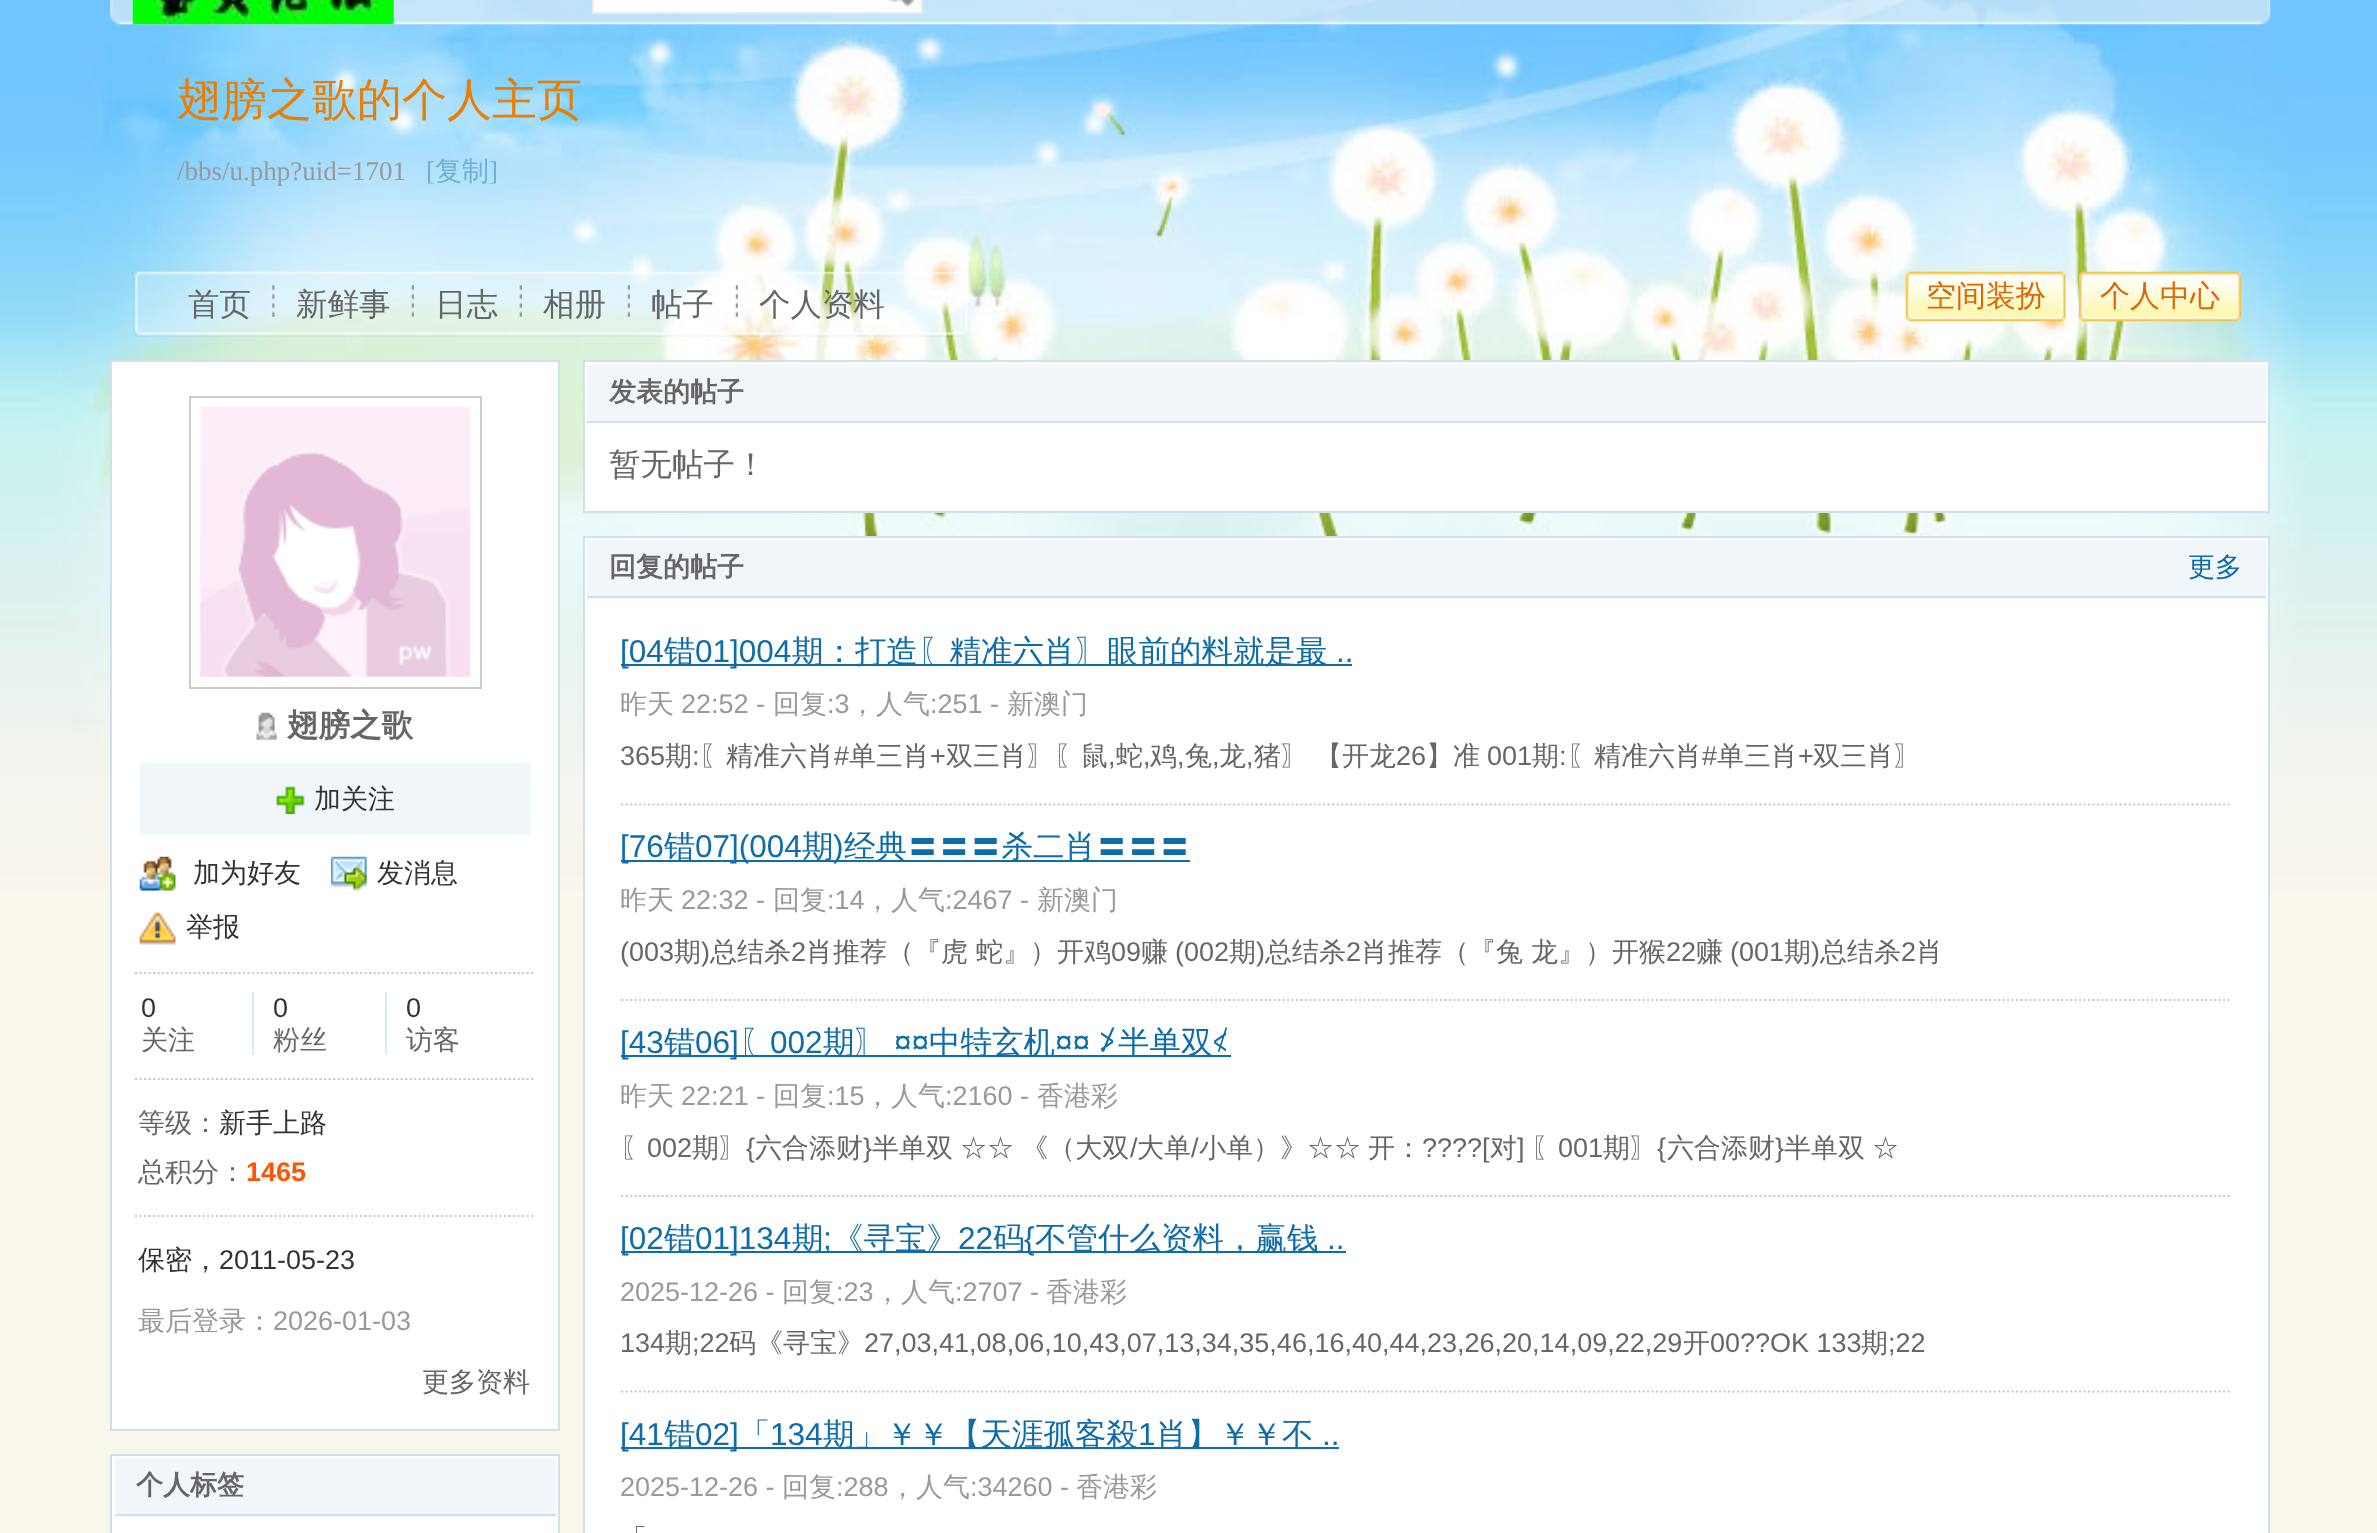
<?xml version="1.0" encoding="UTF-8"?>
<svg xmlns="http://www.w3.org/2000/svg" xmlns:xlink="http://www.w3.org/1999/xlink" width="2377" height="1533">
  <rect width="100%" height="100%" fill="#f9f7eb" />
  <image x="0" y="0" width="2377" height="1035" xlink:href="image1.png" />
  <image x="110" y="0" width="2161" height="25" xlink:href="image2.png" />
  <image x="132" y="0" width="262" height="25" xlink:href="image3.png" />
  <rect x="593" y="-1" width="329" height="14" fill="#ffffff" stroke="#eaeceb" stroke-width="2" />
  <image x="887" y="0" width="28" height="7" xlink:href="image4.png" />
  <image x="133" y="271" width="835" height="66" xlink:href="image5.png" />
  <image x="272" y="285" width="3" height="32" xlink:href="image6.png" />
  <image x="411" y="285" width="3" height="32" xlink:href="image7.png" />
  <image x="519" y="285" width="3" height="32" xlink:href="image8.png" />
  <image x="627" y="285" width="3" height="32" xlink:href="image9.png" />
  <image x="735" y="285" width="3" height="32" xlink:href="image10.png" />
  <image x="2058" y="271" width="8" height="51" xlink:href="image11.png" />
  <image x="1905" y="271" width="156" height="51" xlink:href="image12.png" />
  <image x="2233" y="271" width="8" height="51" xlink:href="image13.png" />
  <image x="2079" y="271" width="158" height="51" xlink:href="image14.png" />
  <rect x="111" y="361" width="448" height="1069" fill="#ffffff" stroke="#cce2ed" stroke-width="2" />
  <rect x="190" y="397" width="291" height="291" fill="none" stroke="#cccccc" stroke-width="2" />
  <image x="200" y="406" width="271" height="271" xlink:href="image15.png" />
  <image x="256" y="712" width="21" height="28" xlink:href="image16.png" />
  <rect x="140" y="763" width="391" height="72" fill="#f1f6fa" />
  <image x="276" y="786" width="29" height="28" xlink:href="image17.png" />
  <image x="139" y="856" width="37" height="35" xlink:href="image18.png" />
  <image x="330" y="856" width="37" height="35" xlink:href="image19.png" />
  <image x="139" y="912" width="37" height="33" xlink:href="image20.png" />
  <path d="M 135 973 h 400.5" fill="none" stroke="#cccccc" stroke-width="2.2" stroke-dasharray="2.25 2.25" />
  <rect x="252" y="992" width="2" height="63" fill="#dce9f1" />
  <rect x="385" y="992" width="2" height="63" fill="#dce9f1" />
  <path d="M 135 1079 h 400.5" fill="none" stroke="#cccccc" stroke-width="2.2" stroke-dasharray="2.25 2.25" />
  <path d="M 135 1216 h 400.5" fill="none" stroke="#cccccc" stroke-width="2.2" stroke-dasharray="2.25 2.25" />
  <rect x="111" y="1455" width="448" height="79" fill="#ffffff" stroke="#cce2ed" stroke-width="2" />
  <rect x="115" y="1458" width="441" height="59" fill="#f1f6fa" />
  <rect x="115" y="1514" width="441" height="2" fill="#cce2ed" />
  <rect x="584" y="361" width="1685" height="151" fill="#ffffff" stroke="#cce2ed" stroke-width="2" />
  <rect x="587" y="365" width="1679" height="56" fill="#f1f6fa" />
  <rect x="587" y="421" width="1679" height="2" fill="#cce2ed" />
  <rect x="584" y="537" width="1685" height="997" fill="#ffffff" stroke="#cce2ed" stroke-width="2" />
  <rect x="587" y="540" width="1679" height="59" fill="#f1f6fa" />
  <rect x="587" y="596" width="1679" height="2" fill="#cce2ed" />
  <path d="M 621 804.5 h 1611" fill="none" stroke="#cccccc" stroke-width="2.2" stroke-dasharray="2.25 2.25" />
  <rect x="621" y="664" width="731" height="2" fill="#0e6caa" />
  <path d="M 621 1000 h 1611" fill="none" stroke="#cccccc" stroke-width="2.2" stroke-dasharray="2.25 2.25" />
  <rect x="621" y="860" width="569" height="2" fill="#0e6caa" />
  <path d="M 621 1196 h 1611" fill="none" stroke="#cccccc" stroke-width="2.2" stroke-dasharray="2.25 2.25" />
  <rect x="621" y="1055" width="610" height="2" fill="#0e6caa" />
  <path d="M 621 1391.5 h 1611" fill="none" stroke="#cccccc" stroke-width="2.2" stroke-dasharray="2.25 2.25" />
  <rect x="621" y="1251" width="725" height="2" fill="#0e6caa" />
  <rect x="621" y="1447" width="718" height="2" fill="#0e6caa" />
  <text x="177" y="115" style="font-family: WenQuanYi Zen Hei; font-size: 45px; font-weight: 500; fill: #ea7e00">翅膀之歌的个人主页</text>
  <text x="177" y="180" style="font-family: Liberation Serif; font-size: 27px; fill: #999999">/bbs/u.php?uid=1701</text>
  <text x="426" y="180" style="font-family: Liberation Serif; font-size: 27px; fill: #6fb0d6">[</text>
  <text x="435" y="180" style="font-family: WenQuanYi Zen Hei; font-size: 27px; font-weight: 500; fill: #6fb0d6">复制</text>
  <text x="489" y="180" style="font-family: Liberation Serif; font-size: 27px; fill: #6fb0d6">]</text>
  <text x="188" y="315" style="font-family: WenQuanYi Zen Hei; font-size: 31.5px; font-weight: 500; fill: #666666">首页</text>
  <text x="296" y="315" style="font-family: WenQuanYi Zen Hei; font-size: 31.5px; font-weight: 500; fill: #666666">新鲜事</text>
  <text x="435" y="315" style="font-family: WenQuanYi Zen Hei; font-size: 31.5px; font-weight: 500; fill: #666666">日志</text>
  <text x="543" y="315" style="font-family: WenQuanYi Zen Hei; font-size: 31.5px; font-weight: 500; fill: #666666">相册</text>
  <text x="651" y="315" style="font-family: WenQuanYi Zen Hei; font-size: 31.5px; font-weight: 500; fill: #666666">帖子</text>
  <text x="759" y="315" style="font-family: WenQuanYi Zen Hei; font-size: 31.5px; font-weight: 500; fill: #666666">个人资料</text>
  <text x="1926" y="306" style="font-family: WenQuanYi Zen Hei; font-size: 30px; font-weight: 500; fill: #dd6800">空间装扮</text>
  <text x="2100" y="306" style="font-family: WenQuanYi Zen Hei; font-size: 30px; font-weight: 500; fill: #dd6800">个人中心</text>
  <text x="287" y="736" style="font-family: WenQuanYi Zen Hei; font-size: 31.5px; font-weight: bold; fill: #666666">翅膀之歌</text>
  <text x="314" y="808" style="font-family: WenQuanYi Zen Hei; font-size: 27px; font-weight: 500; fill: #333333">加关注</text>
  <text x="193" y="882" style="font-family: WenQuanYi Zen Hei; font-size: 27px; font-weight: 500; fill: #333333">加为好友</text>
  <text x="377" y="882" style="font-family: WenQuanYi Zen Hei; font-size: 27px; font-weight: 500; fill: #333333">发消息</text>
  <text x="186" y="936" style="font-family: WenQuanYi Zen Hei; font-size: 27px; font-weight: 500; fill: #333333">举报</text>
  <text x="141" y="1017" style="font-family: Liberation Sans; font-size: 27px; fill: #333333">0</text>
  <text x="141" y="1049" style="font-family: WenQuanYi Zen Hei; font-size: 27px; font-weight: 500; fill: #666666">关注</text>
  <text x="273" y="1017" style="font-family: Liberation Sans; font-size: 27px; fill: #333333">0</text>
  <text x="273" y="1049" style="font-family: WenQuanYi Zen Hei; font-size: 27px; font-weight: 500; fill: #666666">粉丝</text>
  <text x="406" y="1017" style="font-family: Liberation Sans; font-size: 27px; fill: #333333">0</text>
  <text x="406" y="1049" style="font-family: WenQuanYi Zen Hei; font-size: 27px; font-weight: 500; fill: #666666">访客</text>
  <text x="138" y="1132" style="font-family: WenQuanYi Zen Hei; font-size: 27px; font-weight: 500; fill: #666666">等级：</text>
  <text x="219" y="1132" style="font-family: WenQuanYi Zen Hei; font-size: 27px; font-weight: 500; fill: #333333">新手上路</text>
  <text x="138" y="1181" style="font-family: WenQuanYi Zen Hei; font-size: 27px; font-weight: 500; fill: #666666">总积分：</text>
  <text x="246" y="1181" style="font-family: Liberation Sans; font-size: 27px; font-weight: bold; fill: #ff5500">1465</text>
  <text x="138" y="1269" style="font-family: WenQuanYi Zen Hei; font-size: 27px; font-weight: 500; fill: #333333">保密，</text>
  <text x="219" y="1269" style="font-family: Liberation Sans; font-size: 27px; fill: #333333">2011-05-23</text>
  <text x="138" y="1330" style="font-family: WenQuanYi Zen Hei; font-size: 27px; font-weight: 500; fill: #999999">最后登录：</text>
  <text x="273" y="1330" style="font-family: Liberation Sans; font-size: 27px; fill: #999999">2026-01-03</text>
  <text x="422" y="1391" style="font-family: WenQuanYi Zen Hei; font-size: 27px; font-weight: 500; fill: #666666">更多资料</text>
  <text x="136" y="1494" style="font-family: WenQuanYi Zen Hei; font-size: 27px; font-weight: bold; fill: #666666">个人标签</text>
  <text x="609" y="401" style="font-family: WenQuanYi Zen Hei; font-size: 27px; font-weight: bold; fill: #666666">发表的帖子</text>
  <text x="609" y="475" style="font-family: WenQuanYi Zen Hei; font-size: 31.5px; font-weight: 500; fill: #666666">暂无帖子！</text>
  <text x="609" y="576" style="font-family: WenQuanYi Zen Hei; font-size: 27px; font-weight: bold; fill: #666666">回复的帖子</text>
  <text x="2188" y="576" style="font-family: WenQuanYi Zen Hei; font-size: 27px; font-weight: 500; fill: #0e6caa">更多</text>
  <text x="620" y="662" style="font-family: Liberation Sans; font-size: 31.5px; fill: #0e6caa">[04</text>
  <text x="664" y="662" style="font-family: WenQuanYi Zen Hei; font-size: 31.5px; font-weight: 500; fill: #0e6caa">错</text>
  <text x="695" y="662" style="font-family: Liberation Sans; font-size: 31.5px; fill: #0e6caa">01]004</text>
  <text x="792" y="662" style="font-family: WenQuanYi Zen Hei; font-size: 31.5px; font-weight: 500; fill: #0e6caa">期：打造〖精准六肖〗眼前的料就是最</text>
  <text x="1336" y="662" style="font-family: Liberation Sans; font-size: 31.5px; fill: #0e6caa">..</text>
  <text x="620" y="713" style="font-family: WenQuanYi Zen Hei; font-size: 27px; font-weight: 500; fill: #999999">昨天</text>
  <text x="681" y="713" style="font-family: Liberation Sans; font-size: 27px; fill: #999999">22:52 -</text>
  <text x="773" y="713" style="font-family: WenQuanYi Zen Hei; font-size: 27px; font-weight: 500; fill: #999999">回复</text>
  <text x="827" y="713" style="font-family: Liberation Sans; font-size: 27px; fill: #999999">:3</text>
  <text x="849" y="713" style="font-family: WenQuanYi Zen Hei; font-size: 27px; font-weight: 500; fill: #999999">，人气</text>
  <text x="930" y="713" style="font-family: Liberation Sans; font-size: 27px; fill: #999999">:251 -</text>
  <text x="1007" y="713" style="font-family: WenQuanYi Zen Hei; font-size: 27px; font-weight: 500; fill: #999999">新澳门</text>
  <text x="620" y="765" style="font-family: Liberation Sans; font-size: 27px; fill: #666666">365</text>
  <text x="665" y="765" style="font-family: WenQuanYi Zen Hei; font-size: 27px; font-weight: 500; fill: #666666">期</text>
  <text x="692" y="765" style="font-family: Liberation Sans; font-size: 27px; fill: #666666">:</text>
  <text x="699" y="765" style="font-family: WenQuanYi Zen Hei; font-size: 27px; font-weight: 500; fill: #666666">〖精准六肖</text>
  <text x="834" y="765" style="font-family: Liberation Sans; font-size: 27px; fill: #666666">#</text>
  <text x="849" y="765" style="font-family: WenQuanYi Zen Hei; font-size: 27px; font-weight: 500; fill: #666666">单三肖</text>
  <text x="930" y="765" style="font-family: Liberation Sans; font-size: 27px; fill: #666666">+</text>
  <text x="946" y="765" style="font-family: WenQuanYi Zen Hei; font-size: 27px; font-weight: 500; fill: #666666">双三肖〗〖鼠</text>
  <text x="1108" y="765" style="font-family: Liberation Sans; font-size: 27px; fill: #666666">,</text>
  <text x="1116" y="765" style="font-family: WenQuanYi Zen Hei; font-size: 27px; font-weight: 500; fill: #666666">蛇</text>
  <text x="1143" y="765" style="font-family: Liberation Sans; font-size: 27px; fill: #666666">,</text>
  <text x="1150" y="765" style="font-family: WenQuanYi Zen Hei; font-size: 27px; font-weight: 500; fill: #666666">鸡</text>
  <text x="1177" y="765" style="font-family: Liberation Sans; font-size: 27px; fill: #666666">,</text>
  <text x="1185" y="765" style="font-family: WenQuanYi Zen Hei; font-size: 27px; font-weight: 500; fill: #666666">兔</text>
  <text x="1212" y="765" style="font-family: Liberation Sans; font-size: 27px; fill: #666666">,</text>
  <text x="1219" y="765" style="font-family: WenQuanYi Zen Hei; font-size: 27px; font-weight: 500; fill: #666666">龙</text>
  <text x="1246" y="765" style="font-family: Liberation Sans; font-size: 27px; fill: #666666">,</text>
  <text x="1254" y="765" word-spacing="-1" style="font-family: WenQuanYi Zen Hei; font-size: 27px; font-weight: 500; fill: #666666">猪〗 【开龙</text>
  <text x="1396" y="765" style="font-family: Liberation Sans; font-size: 27px; fill: #666666">26</text>
  <text x="1426" y="765" style="font-family: WenQuanYi Zen Hei; font-size: 27px; font-weight: 500; fill: #666666">】准</text>
  <text x="1487" y="765" style="font-family: Liberation Sans; font-size: 27px; fill: #666666">001</text>
  <text x="1532" y="765" style="font-family: WenQuanYi Zen Hei; font-size: 27px; font-weight: 500; fill: #666666">期</text>
  <text x="1559" y="765" style="font-family: Liberation Sans; font-size: 27px; fill: #666666">:</text>
  <text x="1567" y="765" style="font-family: WenQuanYi Zen Hei; font-size: 27px; font-weight: 500; fill: #666666">〖精准六肖</text>
  <text x="1702" y="765" style="font-family: Liberation Sans; font-size: 27px; fill: #666666">#</text>
  <text x="1717" y="765" style="font-family: WenQuanYi Zen Hei; font-size: 27px; font-weight: 500; fill: #666666">单三肖</text>
  <text x="1798" y="765" style="font-family: Liberation Sans; font-size: 27px; fill: #666666">+</text>
  <text x="1813" y="765" style="font-family: WenQuanYi Zen Hei; font-size: 27px; font-weight: 500; fill: #666666">双三肖〗</text>
  <text x="620" y="857" style="font-family: Liberation Sans; font-size: 31.5px; fill: #0e6caa">[76</text>
  <text x="664" y="857" style="font-family: WenQuanYi Zen Hei; font-size: 31.5px; font-weight: 500; fill: #0e6caa">错</text>
  <text x="695" y="857" style="font-family: Liberation Sans; font-size: 31.5px; fill: #0e6caa">07](004</text>
  <text x="802" y="857" style="font-family: WenQuanYi Zen Hei; font-size: 31.5px; font-weight: 500; fill: #0e6caa">期</text>
  <text x="833" y="857" style="font-family: Liberation Sans; font-size: 31.5px; fill: #0e6caa">)</text>
  <text x="844" y="857" style="font-family: WenQuanYi Zen Hei; font-size: 31.5px; font-weight: 500; fill: #0e6caa">经典〓〓〓杀二肖〓〓〓</text>
  <text x="620" y="909" style="font-family: WenQuanYi Zen Hei; font-size: 27px; font-weight: 500; fill: #999999">昨天</text>
  <text x="681" y="909" style="font-family: Liberation Sans; font-size: 27px; fill: #999999">22:32 -</text>
  <text x="773" y="909" style="font-family: WenQuanYi Zen Hei; font-size: 27px; font-weight: 500; fill: #999999">回复</text>
  <text x="827" y="909" style="font-family: Liberation Sans; font-size: 27px; fill: #999999">:14</text>
  <text x="864" y="909" style="font-family: WenQuanYi Zen Hei; font-size: 27px; font-weight: 500; fill: #999999">，人气</text>
  <text x="945" y="909" style="font-family: Liberation Sans; font-size: 27px; fill: #999999">:2467 -</text>
  <text x="1037" y="909" style="font-family: WenQuanYi Zen Hei; font-size: 27px; font-weight: 500; fill: #999999">新澳门</text>
  <text x="620" y="961" style="font-family: Liberation Sans; font-size: 27px; fill: #666666">(003</text>
  <text x="674" y="961" style="font-family: WenQuanYi Zen Hei; font-size: 27px; font-weight: 500; fill: #666666">期</text>
  <text x="701" y="961" style="font-family: Liberation Sans; font-size: 27px; fill: #666666">)</text>
  <text x="710" y="961" style="font-family: WenQuanYi Zen Hei; font-size: 27px; font-weight: 500; fill: #666666">总结杀</text>
  <text x="791" y="961" style="font-family: Liberation Sans; font-size: 27px; fill: #666666">2</text>
  <text x="806" y="961" style="font-family: WenQuanYi Zen Hei; font-size: 27px; font-weight: 500; fill: #666666">肖推荐（『虎 蛇』）开鸡</text>
  <text x="1111" y="961" style="font-family: Liberation Sans; font-size: 27px; fill: #666666">09</text>
  <text x="1141" y="961" style="font-family: WenQuanYi Zen Hei; font-size: 27px; font-weight: 500; fill: #666666">赚</text>
  <text x="1175" y="961" style="font-family: Liberation Sans; font-size: 27px; fill: #666666">(002</text>
  <text x="1229" y="961" style="font-family: WenQuanYi Zen Hei; font-size: 27px; font-weight: 500; fill: #666666">期</text>
  <text x="1256" y="961" style="font-family: Liberation Sans; font-size: 27px; fill: #666666">)</text>
  <text x="1265" y="961" style="font-family: WenQuanYi Zen Hei; font-size: 27px; font-weight: 500; fill: #666666">总结杀</text>
  <text x="1346" y="961" style="font-family: Liberation Sans; font-size: 27px; fill: #666666">2</text>
  <text x="1361" y="961" style="font-family: WenQuanYi Zen Hei; font-size: 27px; font-weight: 500; fill: #666666">肖推荐（『兔 龙』）开猴</text>
  <text x="1666" y="961" style="font-family: Liberation Sans; font-size: 27px; fill: #666666">22</text>
  <text x="1696" y="961" style="font-family: WenQuanYi Zen Hei; font-size: 27px; font-weight: 500; fill: #666666">赚</text>
  <text x="1730" y="961" style="font-family: Liberation Sans; font-size: 27px; fill: #666666">(001</text>
  <text x="1784" y="961" style="font-family: WenQuanYi Zen Hei; font-size: 27px; font-weight: 500; fill: #666666">期</text>
  <text x="1811" y="961" style="font-family: Liberation Sans; font-size: 27px; fill: #666666">)</text>
  <text x="1820" y="961" style="font-family: WenQuanYi Zen Hei; font-size: 27px; font-weight: 500; fill: #666666">总结杀</text>
  <text x="1901" y="961" style="font-family: Liberation Sans; font-size: 27px; fill: #666666">2</text>
  <text x="1916" y="961" style="font-family: WenQuanYi Zen Hei; font-size: 27px; font-weight: 500; fill: #666666">肖</text>
  <text x="620" y="1053" style="font-family: Liberation Sans; font-size: 31.5px; fill: #0e6caa">[43</text>
  <text x="664" y="1053" style="font-family: WenQuanYi Zen Hei; font-size: 31.5px; font-weight: 500; fill: #0e6caa">错</text>
  <text x="695" y="1053" style="font-family: Liberation Sans; font-size: 31.5px; fill: #0e6caa">06]</text>
  <text x="739" y="1053" style="font-family: WenQuanYi Zen Hei; font-size: 31.5px; font-weight: 500; fill: #0e6caa">〖</text>
  <text x="770" y="1053" style="font-family: Liberation Sans; font-size: 31.5px; fill: #0e6caa">002</text>
  <text x="823" y="1053" style="font-family: WenQuanYi Zen Hei; font-size: 31.5px; font-weight: 500; fill: #0e6caa">期〗</text>
  <text x="894" y="1053" style="font-family: Liberation Sans; font-size: 31.5px; fill: #0e6caa">¤¤</text>
  <text x="929" y="1053" style="font-family: WenQuanYi Zen Hei; font-size: 31.5px; font-weight: 500; fill: #0e6caa">中特玄机</text>
  <text x="1055" y="1053" style="font-family: Liberation Sans; font-size: 31.5px; fill: #0e6caa">¤¤</text>
  <text x="1099" y="1053" style="font-family: WenQuanYi Zen Hei; font-size: 31.5px; font-weight: 500; fill: #0e6caa">≯半单双≮</text>
  <text x="620" y="1105" style="font-family: WenQuanYi Zen Hei; font-size: 27px; font-weight: 500; fill: #999999">昨天</text>
  <text x="681" y="1105" style="font-family: Liberation Sans; font-size: 27px; fill: #999999">22:21 -</text>
  <text x="773" y="1105" style="font-family: WenQuanYi Zen Hei; font-size: 27px; font-weight: 500; fill: #999999">回复</text>
  <text x="827" y="1105" style="font-family: Liberation Sans; font-size: 27px; fill: #999999">:15</text>
  <text x="864" y="1105" style="font-family: WenQuanYi Zen Hei; font-size: 27px; font-weight: 500; fill: #999999">，人气</text>
  <text x="945" y="1105" style="font-family: Liberation Sans; font-size: 27px; fill: #999999">:2160 -</text>
  <text x="1037" y="1105" style="font-family: WenQuanYi Zen Hei; font-size: 27px; font-weight: 500; fill: #999999">香港彩</text>
  <text x="620" y="1157" style="font-family: WenQuanYi Zen Hei; font-size: 27px; font-weight: 500; fill: #666666">〖</text>
  <text x="647" y="1157" style="font-family: Liberation Sans; font-size: 27px; fill: #666666">002</text>
  <text x="692" y="1157" style="font-family: WenQuanYi Zen Hei; font-size: 27px; font-weight: 500; fill: #666666">期〗</text>
  <text x="746" y="1157" style="font-family: Liberation Sans; font-size: 27px; fill: #666666">{</text>
  <text x="755" y="1157" style="font-family: WenQuanYi Zen Hei; font-size: 27px; font-weight: 500; fill: #666666">六合添财</text>
  <text x="863" y="1157" style="font-family: Liberation Sans; font-size: 27px; fill: #666666">}</text>
  <text x="872" y="1157" word-spacing="-1" style="font-family: WenQuanYi Zen Hei; font-size: 27px; font-weight: 500; fill: #666666">半单双 ☆☆ 《（大双</text>
  <text x="1130" y="1157" style="font-family: Liberation Sans; font-size: 27px; fill: #666666">/</text>
  <text x="1137" y="1157" style="font-family: WenQuanYi Zen Hei; font-size: 27px; font-weight: 500; fill: #666666">大单</text>
  <text x="1191" y="1157" style="font-family: Liberation Sans; font-size: 27px; fill: #666666">/</text>
  <text x="1199" y="1157" word-spacing="-1" style="font-family: WenQuanYi Zen Hei; font-size: 27px; font-weight: 500; fill: #666666">小单）》☆☆ 开：</text>
  <text x="1422" y="1157" style="font-family: Liberation Sans; font-size: 27px; fill: #666666">????[</text>
  <text x="1490" y="1157" style="font-family: WenQuanYi Zen Hei; font-size: 27px; font-weight: 500; fill: #666666">对</text>
  <text x="1517" y="1157" style="font-family: Liberation Sans; font-size: 27px; fill: #666666">]</text>
  <text x="1531" y="1157" style="font-family: WenQuanYi Zen Hei; font-size: 27px; font-weight: 500; fill: #666666">〖</text>
  <text x="1558" y="1157" style="font-family: Liberation Sans; font-size: 27px; fill: #666666">001</text>
  <text x="1603" y="1157" style="font-family: WenQuanYi Zen Hei; font-size: 27px; font-weight: 500; fill: #666666">期〗</text>
  <text x="1657" y="1157" style="font-family: Liberation Sans; font-size: 27px; fill: #666666">{</text>
  <text x="1667" y="1157" style="font-family: WenQuanYi Zen Hei; font-size: 27px; font-weight: 500; fill: #666666">六合添财</text>
  <text x="1775" y="1157" style="font-family: Liberation Sans; font-size: 27px; fill: #666666">}</text>
  <text x="1784" y="1157" word-spacing="-1" style="font-family: WenQuanYi Zen Hei; font-size: 27px; font-weight: 500; fill: #666666">半单双 ☆</text>
  <text x="620" y="1249" style="font-family: Liberation Sans; font-size: 31.5px; fill: #0e6caa">[02</text>
  <text x="664" y="1249" style="font-family: WenQuanYi Zen Hei; font-size: 31.5px; font-weight: 500; fill: #0e6caa">错</text>
  <text x="695" y="1249" style="font-family: Liberation Sans; font-size: 31.5px; fill: #0e6caa">01]134</text>
  <text x="792" y="1249" style="font-family: WenQuanYi Zen Hei; font-size: 31.5px; font-weight: 500; fill: #0e6caa">期</text>
  <text x="823" y="1249" style="font-family: Liberation Sans; font-size: 31.5px; fill: #0e6caa">;</text>
  <text x="832" y="1249" style="font-family: WenQuanYi Zen Hei; font-size: 31.5px; font-weight: 500; fill: #0e6caa">《寻宝》</text>
  <text x="958" y="1249" style="font-family: Liberation Sans; font-size: 31.5px; fill: #0e6caa">22</text>
  <text x="993" y="1249" style="font-family: WenQuanYi Zen Hei; font-size: 31.5px; font-weight: 500; fill: #0e6caa">码</text>
  <text x="1024" y="1249" style="font-family: Liberation Sans; font-size: 31.5px; fill: #0e6caa">{</text>
  <text x="1035" y="1249" style="font-family: WenQuanYi Zen Hei; font-size: 31.5px; font-weight: 500; fill: #0e6caa">不管什么资料，赢钱</text>
  <text x="1327" y="1249" style="font-family: Liberation Sans; font-size: 31.5px; fill: #0e6caa">..</text>
  <text x="620" y="1301" style="font-family: Liberation Sans; font-size: 27px; fill: #999999">2025-12-26 -</text>
  <text x="782" y="1301" style="font-family: WenQuanYi Zen Hei; font-size: 27px; font-weight: 500; fill: #999999">回复</text>
  <text x="836" y="1301" style="font-family: Liberation Sans; font-size: 27px; fill: #999999">:23</text>
  <text x="874" y="1301" style="font-family: WenQuanYi Zen Hei; font-size: 27px; font-weight: 500; fill: #999999">，人气</text>
  <text x="955" y="1301" style="font-family: Liberation Sans; font-size: 27px; fill: #999999">:2707 -</text>
  <text x="1046" y="1301" style="font-family: WenQuanYi Zen Hei; font-size: 27px; font-weight: 500; fill: #999999">香港彩</text>
  <text x="620" y="1352" style="font-family: Liberation Sans; font-size: 27px; fill: #666666">134</text>
  <text x="665" y="1352" style="font-family: WenQuanYi Zen Hei; font-size: 27px; font-weight: 500; fill: #666666">期</text>
  <text x="692" y="1352" style="font-family: Liberation Sans; font-size: 27px; fill: #666666">;22</text>
  <text x="729" y="1352" style="font-family: WenQuanYi Zen Hei; font-size: 27px; font-weight: 500; fill: #666666">码《寻宝》</text>
  <text x="864" y="1352" style="font-family: Liberation Sans; font-size: 27px; fill: #666666">27,03,41,08,06,10,43,07,13,34,35,46,16,40,44,23,26,20,14,09,22,29</text>
  <text x="1683" y="1352" style="font-family: WenQuanYi Zen Hei; font-size: 27px; font-weight: 500; fill: #666666">开</text>
  <text x="1710" y="1352" style="font-family: Liberation Sans; font-size: 27px; fill: #666666">00??OK 133</text>
  <text x="1861" y="1352" style="font-family: WenQuanYi Zen Hei; font-size: 27px; font-weight: 500; fill: #666666">期</text>
  <text x="1888" y="1352" style="font-family: Liberation Sans; font-size: 27px; fill: #666666">;22</text>
  <text x="620" y="1445" style="font-family: Liberation Sans; font-size: 31.5px; fill: #0e6caa">[41</text>
  <text x="664" y="1445" style="font-family: WenQuanYi Zen Hei; font-size: 31.5px; font-weight: 500; fill: #0e6caa">错</text>
  <text x="695" y="1445" style="font-family: Liberation Sans; font-size: 31.5px; fill: #0e6caa">02]</text>
  <text x="739" y="1445" style="font-family: WenQuanYi Zen Hei; font-size: 31.5px; font-weight: 500; fill: #0e6caa">「</text>
  <text x="770" y="1445" style="font-family: Liberation Sans; font-size: 31.5px; fill: #0e6caa">134</text>
  <text x="823" y="1445" style="font-family: WenQuanYi Zen Hei; font-size: 31.5px; font-weight: 500; fill: #0e6caa">期」￥￥【天涯孤客殺</text>
  <text x="1138" y="1445" style="font-family: Liberation Sans; font-size: 31.5px; fill: #0e6caa">1</text>
  <text x="1156" y="1445" style="font-family: WenQuanYi Zen Hei; font-size: 31.5px; font-weight: 500; fill: #0e6caa">肖】￥￥不</text>
  <text x="1322" y="1445" style="font-family: Liberation Sans; font-size: 31.5px; fill: #0e6caa">..</text>
  <text x="620" y="1496" style="font-family: Liberation Sans; font-size: 27px; fill: #999999">2025-12-26 -</text>
  <text x="782" y="1496" style="font-family: WenQuanYi Zen Hei; font-size: 27px; font-weight: 500; fill: #999999">回复</text>
  <text x="836" y="1496" style="font-family: Liberation Sans; font-size: 27px; fill: #999999">:288</text>
  <text x="889" y="1496" style="font-family: WenQuanYi Zen Hei; font-size: 27px; font-weight: 500; fill: #999999">，人气</text>
  <text x="970" y="1496" style="font-family: Liberation Sans; font-size: 27px; fill: #999999">:34260 -</text>
  <text x="1076" y="1496" style="font-family: WenQuanYi Zen Hei; font-size: 27px; font-weight: 500; fill: #999999">香港彩</text>
  <text x="620" y="1548" style="font-family: WenQuanYi Zen Hei; font-size: 27px; font-weight: 500; fill: #666666">「</text>
</svg>
